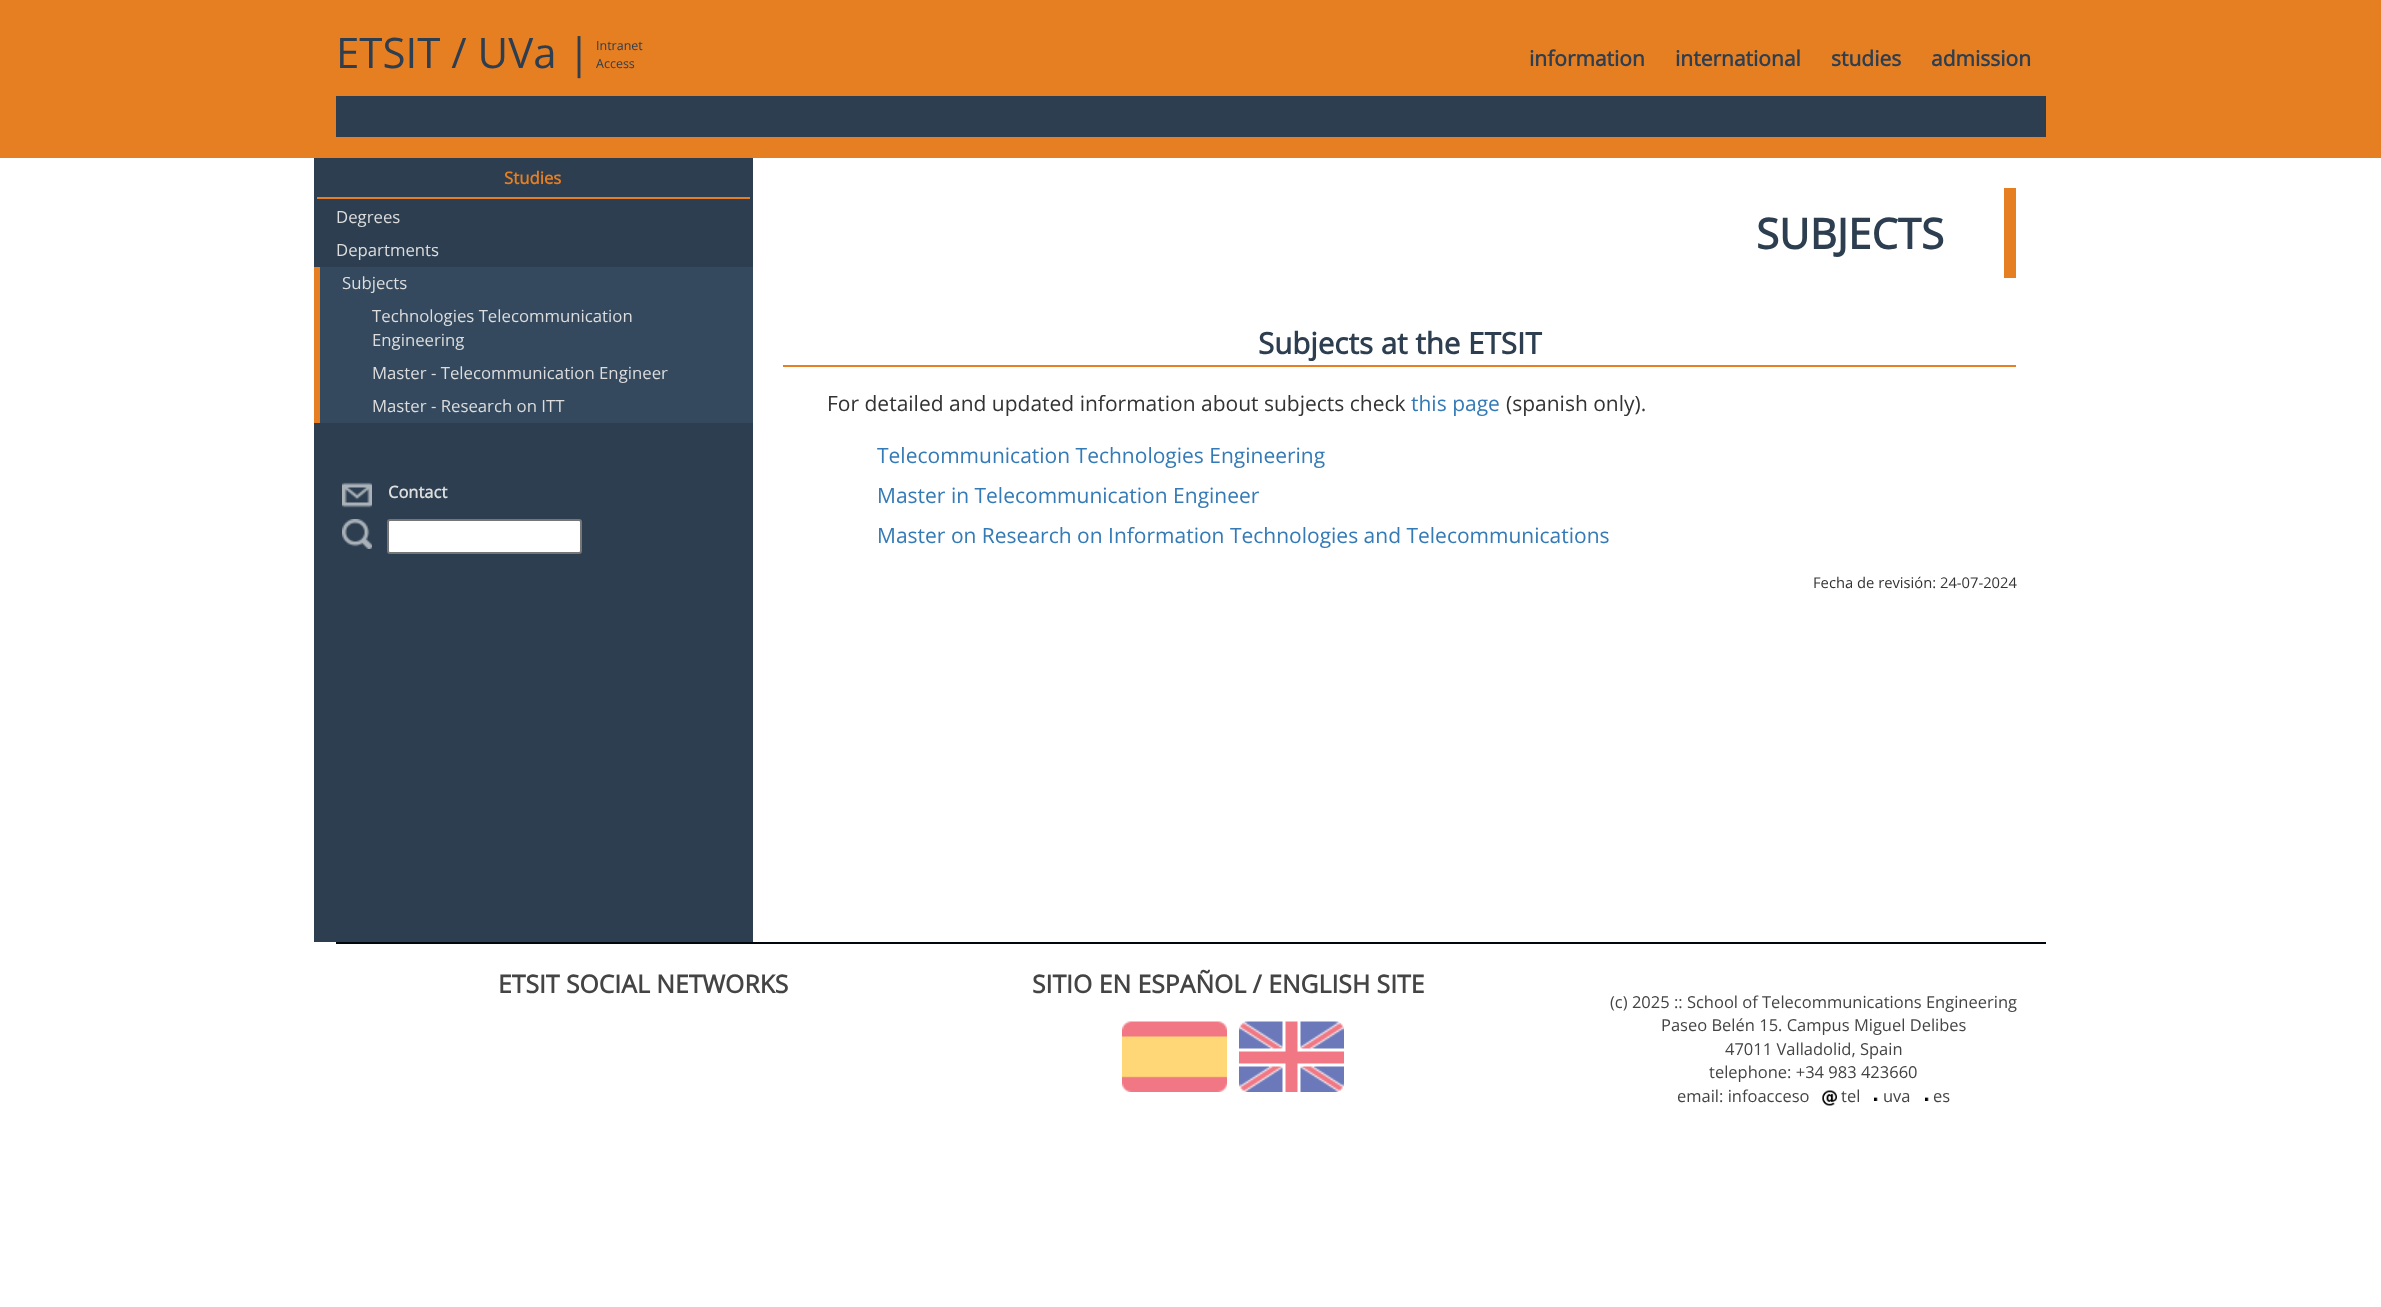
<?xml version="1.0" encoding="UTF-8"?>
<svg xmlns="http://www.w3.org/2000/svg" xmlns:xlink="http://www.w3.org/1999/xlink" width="2381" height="1307">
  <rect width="100%" height="100%" fill="#ffffff" />
  <rect width="2381" height="158" fill="#e67e22" />
  <rect x="336" y="96" width="1710" height="41" fill="#2c3e50" />
  <rect x="314" y="158" width="439" height="784" fill="#2c3e50" />
  <rect x="317" y="197" width="433" height="2" fill="#e67e22" />
  <rect x="320" y="267" width="433" height="156" fill="#34495e" />
  <rect x="314" y="267" width="6" height="156" fill="#e67e22" />
  <image x="342" y="482" width="30" height="26" xlink:href="image1.png" />
  <image x="342" y="519" width="30" height="30" xlink:href="image2.png" />
  <rect x="388" y="520" width="193" height="33" rx="2" fill="#ffffff" stroke="#767676" stroke-width="2" />
  <rect x="2004" y="188" width="12" height="90" fill="#e67e22" />
  <rect x="783" y="365" width="1233" height="2" fill="#e67e22" />
  <rect x="336" y="942" width="1710" height="2" fill="#00070d" />
  <image x="1122" y="1021" width="105" height="71" xlink:href="image3.png" />
  <image x="1239" y="1021" width="105" height="71" xlink:href="image4.png" />
  <image x="1822" y="1090" width="15" height="16" xlink:href="image5.png" />
  <image x="1874" y="1097" width="4" height="4" xlink:href="image6.png" />
  <image x="1925" y="1097" width="4" height="4" xlink:href="image6.png" />
  <text x="336" y="68" style="font-family: Open Sans; font-size: 42px; fill: #2c3e50">ETSIT / UVa |</text>
  <text x="596" y="50" style="font-family: Open Sans; font-size: 12.5px; fill: #2c3e50">Intranet</text>
  <text x="596" y="68" style="font-family: Open Sans; font-size: 12.5px; fill: #2c3e50">Access</text>
  <text x="1529" y="66" style="font-family: Open Sans; font-size: 21px; font-weight: bold; fill: #2c3e50">information</text>
  <text x="1675" y="66" style="font-family: Open Sans; font-size: 21px; font-weight: bold; fill: #2c3e50">international</text>
  <text x="1831" y="66" style="font-family: Open Sans; font-size: 21px; font-weight: bold; fill: #2c3e50">studies</text>
  <text x="1931" y="66" style="font-family: Open Sans; font-size: 21px; font-weight: bold; fill: #2c3e50">admission</text>
  <text x="504" y="184" style="font-family: Open Sans; font-size: 16.75px; font-weight: bold; fill: #e67e22">Studies</text>
  <text x="336" y="223" style="font-family: Open Sans; font-size: 16.75px; fill: #dddddd">Degrees</text>
  <text x="336" y="256" style="font-family: Open Sans; font-size: 16.75px; fill: #dddddd">Departments</text>
  <text x="342" y="289" style="font-family: Open Sans; font-size: 16.75px; fill: #dddddd">Subjects</text>
  <text x="372" y="322" style="font-family: Open Sans; font-size: 16.75px; fill: #dddddd">Technologies Telecommunication</text>
  <text x="372" y="346" style="font-family: Open Sans; font-size: 16.75px; fill: #dddddd">Engineering</text>
  <text x="372" y="379" style="font-family: Open Sans; font-size: 16.75px; fill: #dddddd">Master - Telecommunication Engineer</text>
  <text x="372" y="412" style="font-family: Open Sans; font-size: 16.75px; fill: #dddddd">Master - Research on ITT</text>
  <text x="388" y="498" style="font-family: Open Sans; font-size: 16.5px; font-weight: bold; fill: #dddddd">Contact</text>
  <text x="1756" y="249" style="font-family: Open Sans; font-size: 42px; font-weight: bold; fill: #2c3e50">SUBJECTS</text>
  <text x="1258" y="354" style="font-family: Open Sans; font-size: 29.5px; font-weight: bold; fill: #2c3e50">Subjects at the ETSIT</text>
  <text x="827" y="411" style="font-family: Open Sans; font-size: 21px; fill: #333333">For detailed and updated information about subjects check</text>
  <text x="1411" y="411" style="font-family: Open Sans; font-size: 21px; fill: #337ab7">this page</text>
  <text x="1506" y="411" style="font-family: Open Sans; font-size: 21px; fill: #333333">(spanish only).</text>
  <text x="877" y="463" style="font-family: Open Sans; font-size: 21px; fill: #337ab7">Telecommunication Technologies Engineering</text>
  <text x="877" y="503" style="font-family: Open Sans; font-size: 21px; fill: #337ab7">Master in Telecommunication Engineer</text>
  <text x="877" y="543" style="font-family: Open Sans; font-size: 21px; fill: #337ab7">Master on Research on Information Technologies and Telecommunications</text>
  <text x="1813" y="588" style="font-family: Open Sans; font-size: 14.75px; fill: #333333">Fecha de revisión: 24-07-2024</text>
  <text x="498" y="993" style="font-family: Open Sans; font-size: 24.75px; font-weight: bold; fill: #444444">ETSIT SOCIAL NETWORKS</text>
  <text x="1032" y="993" style="font-family: Open Sans; font-size: 24.75px; font-weight: bold; fill: #444444">SITIO EN ESPAÑOL / ENGLISH SITE</text>
  <text x="1610" y="1008" style="font-family: Open Sans; font-size: 16.5px; fill: #444444">(c) 2025 :: School of Telecommunications Engineering</text>
  <text x="1661" y="1031" style="font-family: Open Sans; font-size: 16.5px; fill: #444444">Paseo Belén 15. Campus Miguel Delibes</text>
  <text x="1725" y="1055" style="font-family: Open Sans; font-size: 16.5px; fill: #444444">47011 Valladolid, Spain</text>
  <text x="1709" y="1078" style="font-family: Open Sans; font-size: 16.5px; fill: #444444">telephone: +34 983 423660</text>
  <text x="1677" y="1102" style="font-family: Open Sans; font-size: 16.5px; fill: #444444">email: infoacceso</text>
  <text x="1841" y="1102" style="font-family: Open Sans; font-size: 16.5px; fill: #444444">tel</text>
  <text x="1883" y="1102" style="font-family: Open Sans; font-size: 16.5px; fill: #444444">uva</text>
  <text x="1933" y="1102" style="font-family: Open Sans; font-size: 16.5px; fill: #444444">es</text>
</svg>
